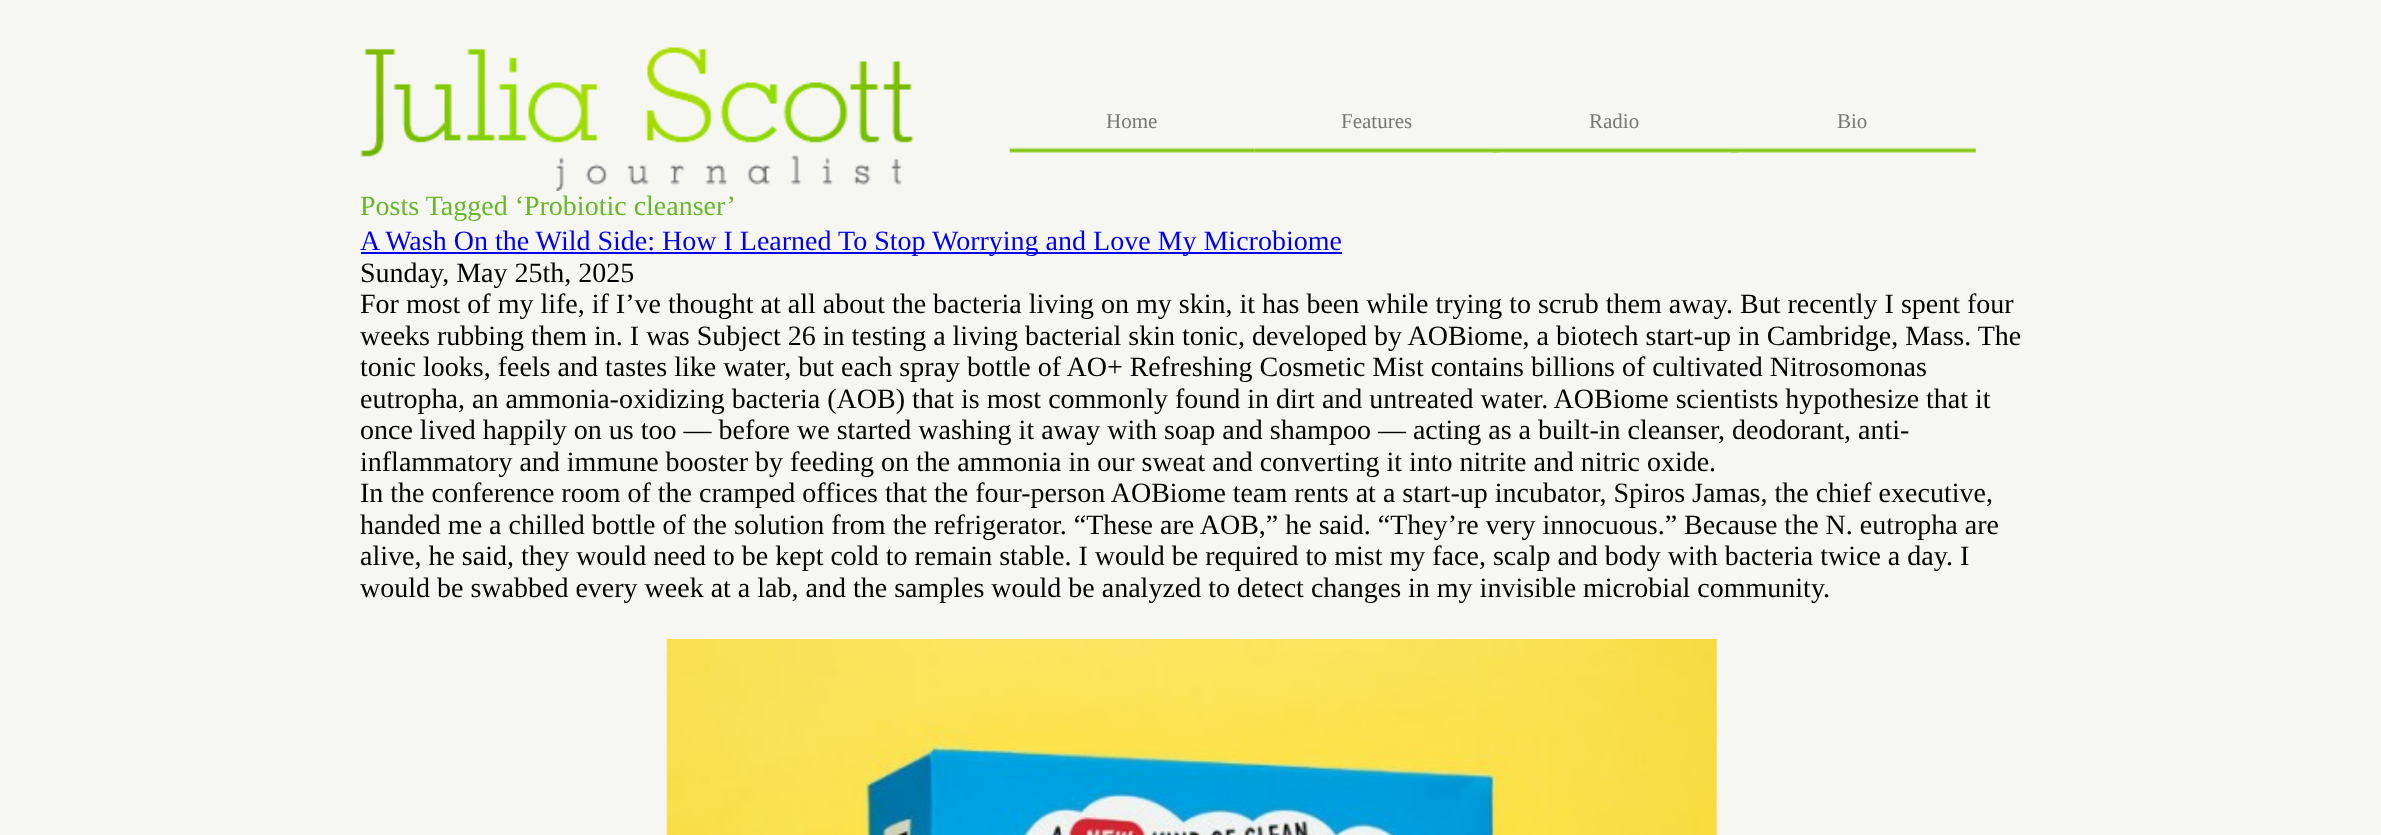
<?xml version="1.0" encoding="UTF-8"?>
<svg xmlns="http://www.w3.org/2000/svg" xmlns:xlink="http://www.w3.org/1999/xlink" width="2381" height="835">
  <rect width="100%" height="100%" fill="#f6f7f2" />
  <image x="360" y="47" width="554" height="144" xlink:href="image1.png" />
  <image x="1009" y="147" width="246" height="6" xlink:href="image2.png" />
  <image x="1254" y="147" width="246" height="6" xlink:href="image3.png" />
  <image x="1492" y="147" width="246" height="6" xlink:href="image4.png" />
  <image x="1730" y="147" width="246" height="6" xlink:href="image4.png" />
  <rect x="361" y="252" width="981" height="2" fill="#0000ee" />
  <image x="666" y="639" width="1051" height="196" xlink:href="image5.png" />
  <text x="1106" y="128" style="font-family: Liberation Serif; font-size: 21px; fill: #767878">Home</text>
  <text x="1341" y="128" style="font-family: Liberation Serif; font-size: 21px; fill: #767878">Features</text>
  <text x="1589" y="128" style="font-family: Liberation Serif; font-size: 21px; fill: #767878">Radio</text>
  <text x="1837" y="128" style="font-family: Liberation Serif; font-size: 21px; fill: #767878">Bio</text>
  <text x="360" y="215" style="font-family: Liberation Serif; font-size: 28px; fill: #68b629">Posts Tagged ‘Probiotic cleanser’</text>
  <text x="360" y="250" style="font-family: Liberation Serif; font-size: 28px; fill: #0000ee">A Wash On the Wild Side: How I Learned To Stop Worrying and Love My Microbiome</text>
  <text x="360" y="282" style="font-family: Liberation Serif; font-size: 28px; fill: #000000">Sunday, May 25th, 2025</text>
  <text x="360" y="313" style="font-family: Liberation Serif; font-size: 28px; fill: #000000">For most of my life, if I’ve thought at all about the bacteria living on my skin, it has been while trying to scrub them away. But recently I spent four</text>
  <text x="360" y="345" style="font-family: Liberation Serif; font-size: 28px; fill: #000000">weeks rubbing them in. I was Subject 26 in testing a living bacterial skin tonic, developed by AOBiome, a biotech start-up in Cambridge, Mass. The</text>
  <text x="360" y="376" style="font-family: Liberation Serif; font-size: 28px; fill: #000000">tonic looks, feels and tastes like water, but each spray bottle of AO+ Refreshing Cosmetic Mist contains billions of cultivated Nitrosomonas</text>
  <text x="360" y="408" style="font-family: Liberation Serif; font-size: 28px; fill: #000000">eutropha, an ammonia-oxidizing bacteria (AOB) that is most commonly found in dirt and untreated water. AOBiome scientists hypothesize that it</text>
  <text x="360" y="439" style="font-family: Liberation Serif; font-size: 28px; fill: #000000">once lived happily on us too — before we started washing it away with soap and shampoo — acting as a built-in cleanser, deodorant, anti-</text>
  <text x="360" y="471" style="font-family: Liberation Serif; font-size: 28px; fill: #000000">inflammatory and immune booster by feeding on the ammonia in our sweat and converting it into nitrite and nitric oxide.</text>
  <text x="360" y="502" style="font-family: Liberation Serif; font-size: 28px; fill: #000000">In the conference room of the cramped offices that the four-person AOBiome team rents at a start-up incubator, Spiros Jamas, the chief executive,</text>
  <text x="360" y="534" style="font-family: Liberation Serif; font-size: 28px; fill: #000000">handed me a chilled bottle of the solution from the refrigerator. “These are AOB,” he said. “They’re very innocuous.” Because the N. eutropha are</text>
  <text x="360" y="565" style="font-family: Liberation Serif; font-size: 28px; fill: #000000">alive, he said, they would need to be kept cold to remain stable. I would be required to mist my face, scalp and body with bacteria twice a day. I</text>
  <text x="360" y="597" style="font-family: Liberation Serif; font-size: 28px; fill: #000000">would be swabbed every week at a lab, and the samples would be analyzed to detect changes in my invisible microbial community.</text>
</svg>
